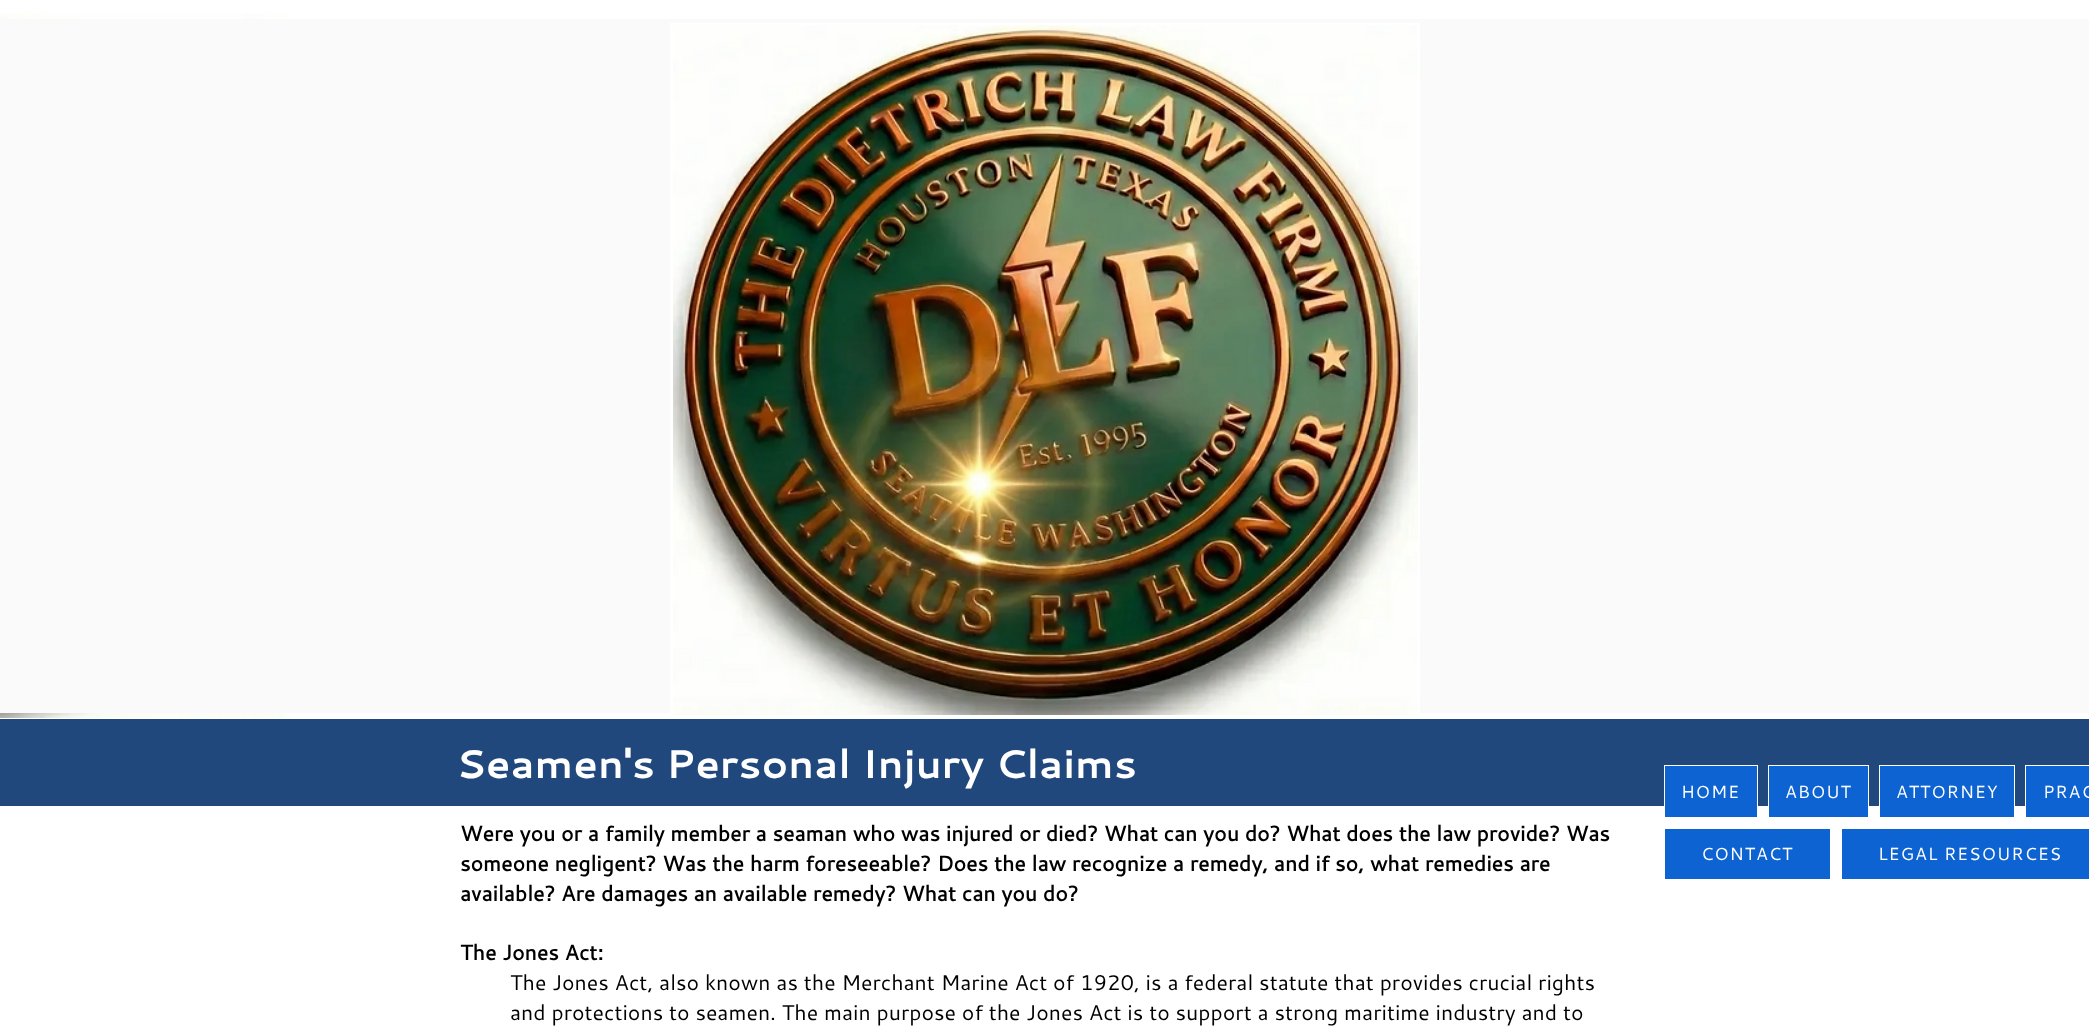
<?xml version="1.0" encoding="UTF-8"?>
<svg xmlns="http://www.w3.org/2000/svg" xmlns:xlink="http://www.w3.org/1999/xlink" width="2089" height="1027">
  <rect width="100%" height="100%" fill="#ffffff" />
  <image x="0" y="13" width="290" height="705" xlink:href="image1.png" />
  <rect y="19" width="2089" height="694" fill="#fafafa" />
  <rect x="670" y="23" width="750" height="690" fill="#ffffff" />
  <image x="673" y="25" width="745" height="690" xlink:href="image2.png" />
  <rect y="719" width="2089" height="87" fill="#20487d" />
  <rect x="1664.5" y="765.5" width="93" height="52" fill="#0d63d1" stroke="#ffffff" />
  <rect x="1768.5" y="765.5" width="100" height="52" fill="#0d63d1" stroke="#ffffff" />
  <rect x="1879.5" y="765.5" width="135" height="52" fill="#0d63d1" stroke="#ffffff" />
  <rect x="2025.5" y="765.5" width="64" height="52" fill="#0d63d1" stroke="#ffffff" />
  <rect x="1665" y="829" width="165" height="50" fill="#0d63d1" />
  <rect x="1842" y="829" width="247" height="50" fill="#0d63d1" />
  <text x="456" y="778" style="font-family: Cantarell; font-size: 40px; font-weight: bold; fill: #ffffff">Seamen's Personal Injury Claims</text>
  <text x="460" y="841" style="font-family: 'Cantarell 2'; font-size: 21.25px; font-weight: bold; fill: #000000">Were you or a family member a seaman who was injured or died? What can you do? What does the law provide? Was</text>
  <text x="460" y="871" style="font-family: 'Cantarell 2'; font-size: 21.25px; font-weight: bold; fill: #000000">someone negligent? Was the harm foreseeable? Does the law recognize a remedy, and if so, what remedies are</text>
  <text x="460" y="901" style="font-family: 'Cantarell 2'; font-size: 21.25px; font-weight: bold; fill: #000000">available? Are damages an available remedy? What can you do?</text>
  <text x="460" y="960" style="font-family: 'Cantarell 2'; font-size: 21.25px; font-weight: bold; fill: #000000">The Jones Act:</text>
  <text x="510" y="990" style="font-family: Cantarell; font-size: 21.25px; fill: #000000">The Jones Act, also known as the Merchant Marine Act of 1920, is a federal statute that provides crucial rights</text>
  <text x="510" y="1020" style="font-family: Cantarell; font-size: 21.25px; fill: #000000">and protections to seamen. The main purpose of the Jones Act is to support a strong maritime industry and to</text>
  <text x="1681" y="798" style="font-family: Cantarell; font-size: 17.5px; letter-spacing: 0.9px; fill: #ffffff">HOME</text>
  <text x="1785" y="798" style="font-family: Cantarell; font-size: 17.5px; letter-spacing: 0.9px; fill: #ffffff">ABOUT</text>
  <text x="1896" y="798" style="font-family: Cantarell; font-size: 17.5px; letter-spacing: 0.9px; fill: #ffffff">ATTORNEY</text>
  <text x="2043" y="798" style="font-family: Cantarell; font-size: 17.5px; letter-spacing: 0.9px; fill: #ffffff">PRAC</text>
  <text x="1701" y="860" style="font-family: Cantarell; font-size: 17.5px; letter-spacing: 0.9px; fill: #ffffff">CONTACT</text>
  <text x="1878" y="860" style="font-family: Cantarell; font-size: 17.5px; letter-spacing: 0.9px; fill: #ffffff">LEGAL RESOURCES</text>
</svg>
